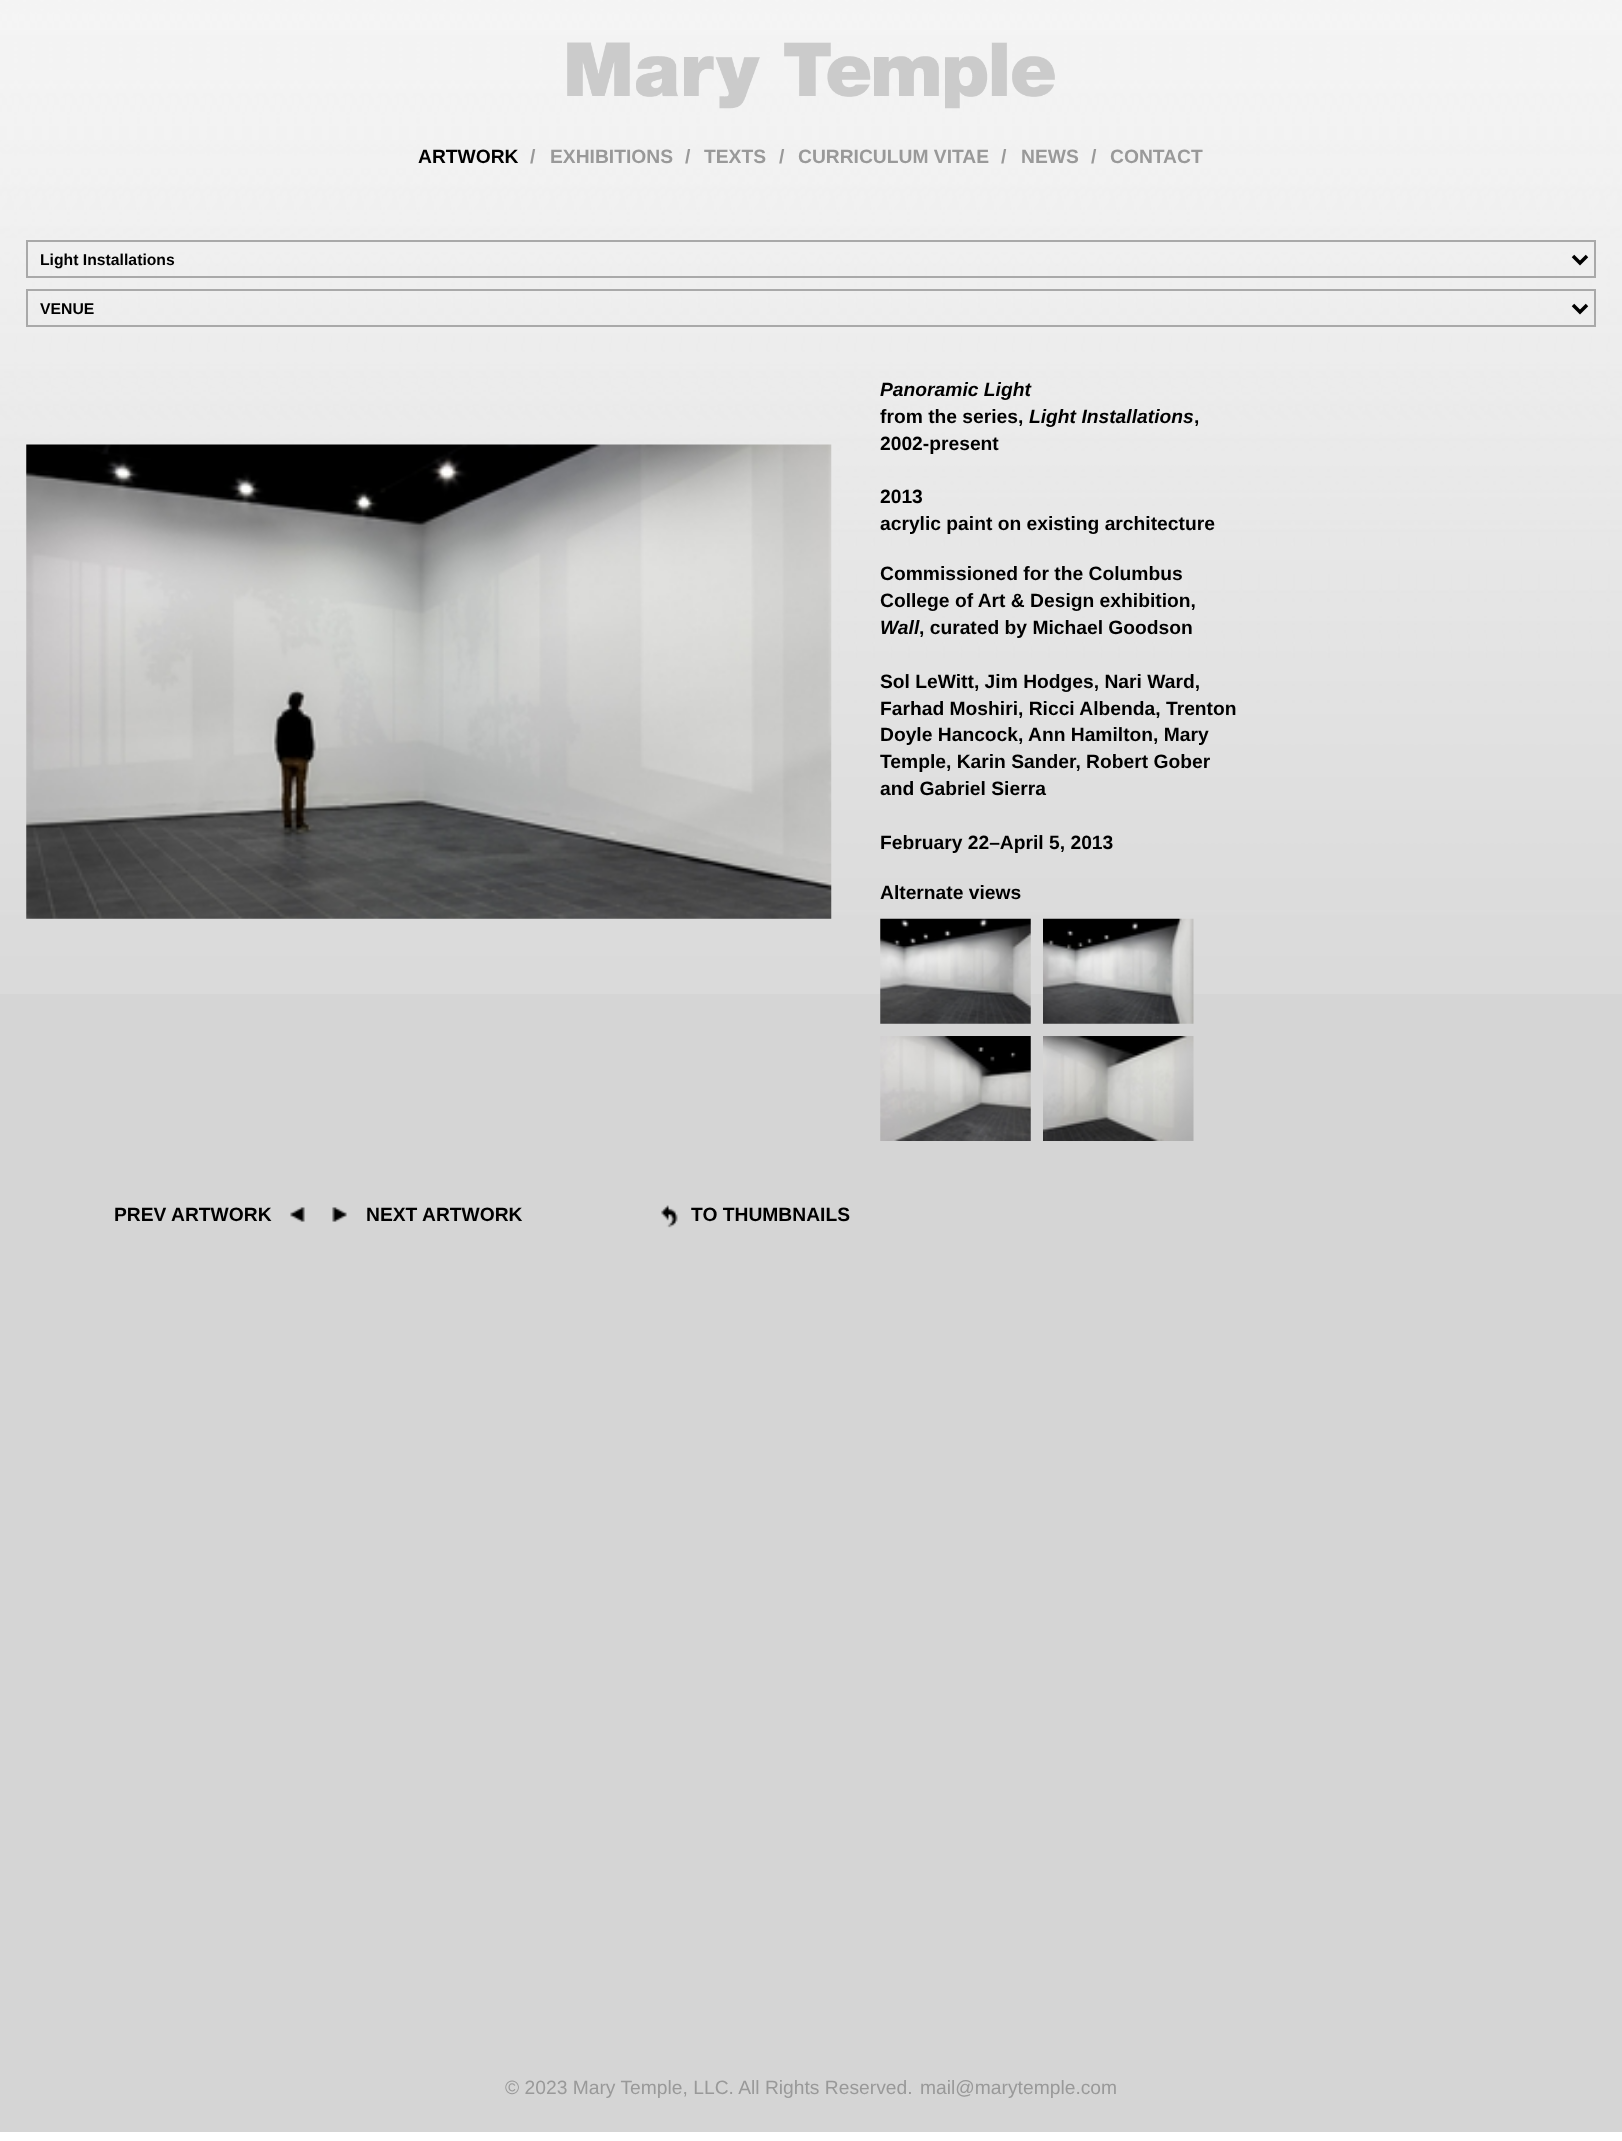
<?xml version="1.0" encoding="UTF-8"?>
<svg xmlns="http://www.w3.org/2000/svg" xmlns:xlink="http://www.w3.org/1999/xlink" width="1622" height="2141">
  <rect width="100%" height="100%" fill="#ffffff" />
  <rect y="994" width="1622" height="1138" fill="#d5d5d5" />
  <image x="0" y="0" width="1622" height="994" xlink:href="image1.png" />
  <image x="567" y="42" width="488" height="67" xlink:href="image2.png" />
  <rect x="27" y="241" width="1568" height="36" fill="none" stroke="#a9a9a9" stroke-width="2" />
  <path d="M 1573 256 l 7 7 l 7 -7" fill="none" stroke="#000000" stroke-width="3.5" />
  <rect x="27" y="290" width="1568" height="36" fill="none" stroke="#a9a9a9" stroke-width="2" />
  <path d="M 1573 305 l 7 7 l 7 -7" fill="none" stroke="#000000" stroke-width="3.5" />
  <image x="26" y="444" width="806" height="475" xlink:href="image3.png" />
  <image x="880" y="918" width="151" height="106" xlink:href="image4.png" />
  <image x="1043" y="918" width="151" height="106" xlink:href="image5.png" />
  <image x="880" y="1036" width="151" height="105" xlink:href="image6.png" />
  <image x="1043" y="1036" width="151" height="105" xlink:href="image7.png" />
  <image x="290" y="1207" width="15" height="15" xlink:href="image8.png" />
  <image x="332" y="1207" width="15" height="15" xlink:href="image9.png" />
  <image x="661" y="1205" width="17" height="23" xlink:href="image10.png" />
  <text x="418" y="163" style="font-family: Liberation Sans; font-size: 19.25px; font-weight: bold; fill: #000000">ARTWORK</text>
  <text x="530" y="163" style="font-family: Liberation Sans; font-size: 19.25px; font-weight: bold; fill: #999999">/</text>
  <text x="550" y="163" style="font-family: Liberation Sans; font-size: 19.25px; font-weight: bold; fill: #999999">EXHIBITIONS</text>
  <text x="685" y="163" style="font-family: Liberation Sans; font-size: 19.25px; font-weight: bold; fill: #999999">/</text>
  <text x="704" y="163" style="font-family: Liberation Sans; font-size: 19.25px; font-weight: bold; fill: #999999">TEXTS</text>
  <text x="779" y="163" style="font-family: Liberation Sans; font-size: 19.25px; font-weight: bold; fill: #999999">/</text>
  <text x="798" y="163" style="font-family: Liberation Sans; font-size: 19.25px; font-weight: bold; fill: #999999">CURRICULUM VITAE</text>
  <text x="1001" y="163" style="font-family: Liberation Sans; font-size: 19.25px; font-weight: bold; fill: #999999">/</text>
  <text x="1021" y="163" style="font-family: Liberation Sans; font-size: 19.25px; font-weight: bold; fill: #999999">NEWS</text>
  <text x="1091" y="163" style="font-family: Liberation Sans; font-size: 19.25px; font-weight: bold; fill: #999999">/</text>
  <text x="1110" y="163" style="font-family: Liberation Sans; font-size: 19.25px; font-weight: bold; fill: #999999">CONTACT</text>
  <text x="40" y="265" style="font-family: Liberation Sans; font-size: 15.75px; font-weight: bold; fill: #000000">Light Installations</text>
  <text x="40" y="314" style="font-family: Liberation Sans; font-size: 15.75px; font-weight: bold; fill: #000000">VENUE</text>
  <text x="880" y="396" style="font-family: Liberation Sans; font-size: 19.25px; font-weight: bold; font-style: italic; fill: #000000">Panoramic Light</text>
  <text x="880" y="423" style="font-family: Liberation Sans; font-size: 19.25px; font-weight: bold; fill: #000000">from the series,</text>
  <text x="1029" y="423" style="font-family: Liberation Sans; font-size: 19.25px; font-weight: bold; font-style: italic; fill: #000000">Light Installations</text>
  <text x="1194" y="423" style="font-family: Liberation Sans; font-size: 19.25px; font-weight: bold; fill: #000000">,</text>
  <text x="880" y="450" style="font-family: Liberation Sans; font-size: 19.25px; font-weight: bold; fill: #000000">2002-present</text>
  <text x="880" y="503" style="font-family: Liberation Sans; font-size: 19.25px; font-weight: bold; fill: #000000">2013</text>
  <text x="880" y="530" style="font-family: Liberation Sans; font-size: 19.25px; font-weight: bold; fill: #000000">acrylic paint on existing architecture</text>
  <text x="880" y="580" style="font-family: Liberation Sans; font-size: 19.25px; font-weight: bold; fill: #000000">Commissioned for the Columbus</text>
  <text x="880" y="607" style="font-family: Liberation Sans; font-size: 19.25px; font-weight: bold; fill: #000000">College of Art &amp; Design exhibition,</text>
  <text x="880" y="634" style="font-family: Liberation Sans; font-size: 19.25px; font-weight: bold; font-style: italic; fill: #000000">Wall</text>
  <text x="919" y="634" style="font-family: Liberation Sans; font-size: 19.25px; font-weight: bold; fill: #000000">, curated by Michael Goodson</text>
  <text x="880" y="688" style="font-family: Liberation Sans; font-size: 19.25px; font-weight: bold; fill: #000000">Sol LeWitt, Jim Hodges, Nari Ward,</text>
  <text x="880" y="715" style="font-family: Liberation Sans; font-size: 19.25px; font-weight: bold; fill: #000000">Farhad Moshiri, Ricci Albenda, Trenton</text>
  <text x="880" y="741" style="font-family: Liberation Sans; font-size: 19.25px; font-weight: bold; fill: #000000">Doyle Hancock, Ann Hamilton, Mary</text>
  <text x="880" y="768" style="font-family: Liberation Sans; font-size: 19.25px; font-weight: bold; fill: #000000">Temple, Karin Sander, Robert Gober</text>
  <text x="880" y="795" style="font-family: Liberation Sans; font-size: 19.25px; font-weight: bold; fill: #000000">and Gabriel Sierra</text>
  <text x="880" y="849" style="font-family: Liberation Sans; font-size: 19.25px; font-weight: bold; fill: #000000">February 22–April 5, 2013</text>
  <text x="880" y="899" style="font-family: Liberation Sans; font-size: 19.25px; font-weight: bold; fill: #000000">Alternate views</text>
  <text x="114" y="1221" style="font-family: Liberation Sans; font-size: 19.25px; font-weight: bold; fill: #000000">PREV ARTWORK</text>
  <text x="366" y="1221" style="font-family: Liberation Sans; font-size: 19.25px; font-weight: bold; fill: #000000">NEXT ARTWORK</text>
  <text x="691" y="1221" style="font-family: Liberation Sans; font-size: 19.25px; font-weight: bold; fill: #000000">TO THUMBNAILS</text>
  <text x="505" y="2094" style="font-family: Liberation Sans; font-size: 19.25px; fill: #999999">© 2023 Mary Temple, LLC. All Rights Reserved.</text>
  <text x="920" y="2094" style="font-family: Liberation Sans; font-size: 19.25px; fill: #999999">mail@marytemple.com</text>
</svg>
